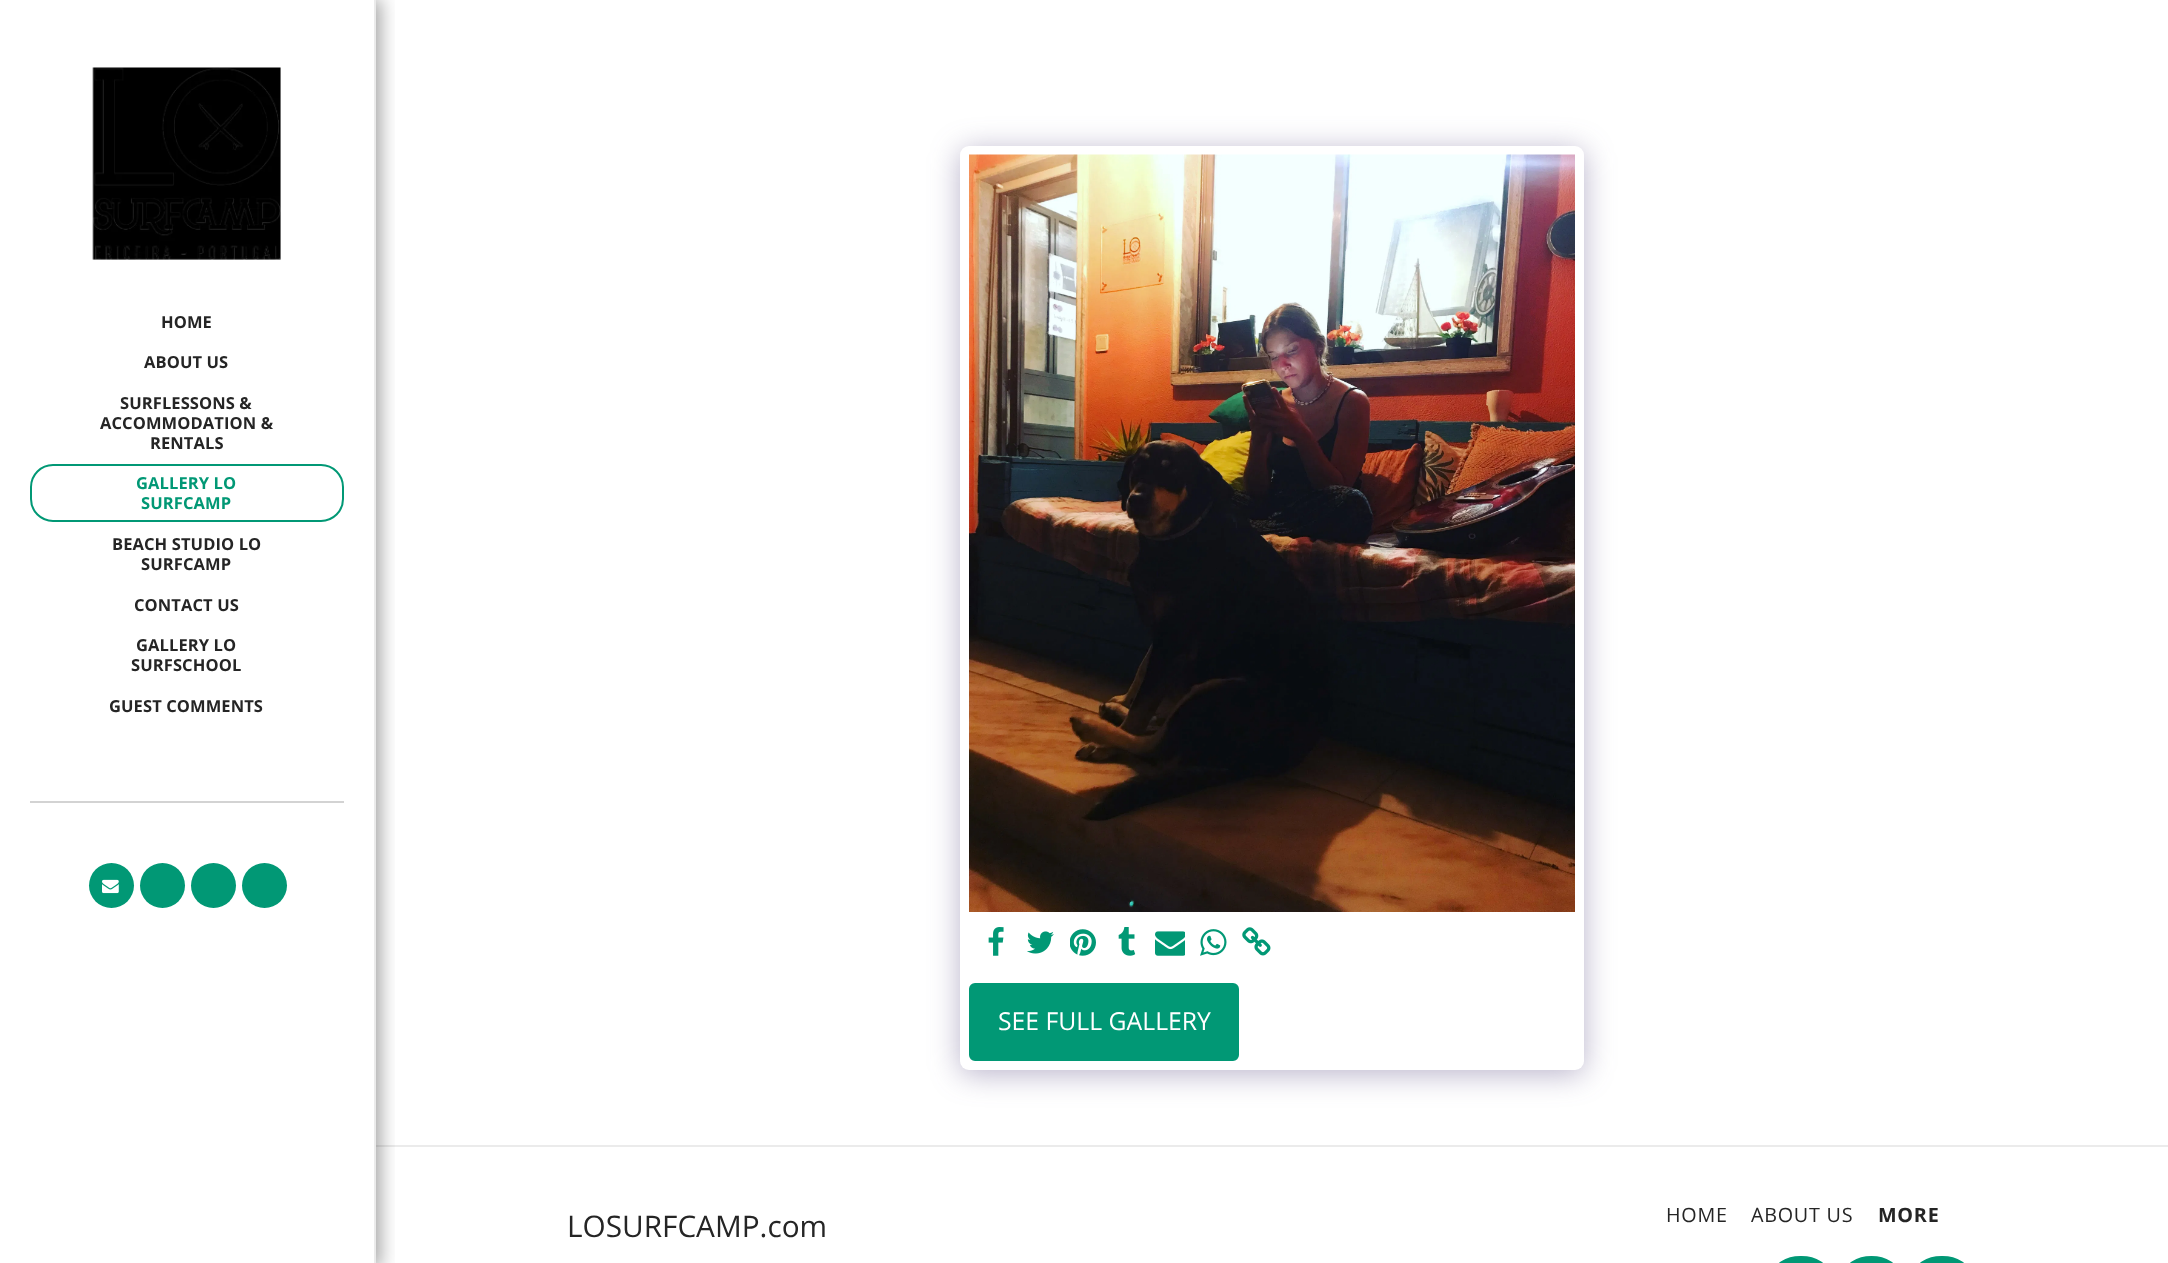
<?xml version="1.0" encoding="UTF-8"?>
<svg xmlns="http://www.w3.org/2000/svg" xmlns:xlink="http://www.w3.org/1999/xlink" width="2168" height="1263">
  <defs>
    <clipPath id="clip1"><rect x="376" y="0" width="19" height="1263" /></clipPath>
  </defs>
  <rect width="100%" height="100%" fill="#ffffff" />
  <rect x="375" y="1145" width="1793" height="2" fill="#ebebeb" />
  <g clip-path="url(#clip1)">
    <rect y="-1" width="381" height="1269" fill="#000000" fill-opacity="0.35" filter="blur(9px)" />
  </g>
  <rect x="374" width="2" height="1263" fill="#ebebeb" />
  <image x="92" y="67" width="189" height="193" xlink:href="image1.png" />
  <rect x="31" y="465" width="312" height="56" rx="22" fill="none" stroke="#019875" stroke-width="2" />
  <rect x="30" y="801" width="314" height="2" fill="#d3d3d3" />
  <circle cx="111.5" cy="885.5" r="22.5" fill="#019875" />
  <image x="102" y="879" width="17" height="15" xlink:href="image2.png" />
  <circle cx="162.5" cy="885.5" r="22.5" fill="#019875" />
  <circle cx="213.5" cy="885.5" r="22.5" fill="#019875" />
  <circle cx="264.5" cy="885.5" r="22.5" fill="#019875" />
  <rect x="960" y="150" width="624" height="924" rx="9" fill="#4d3f7a" fill-opacity="0.4" filter="blur(15px)" />
  <rect x="960" y="146" width="624" height="924" rx="9" fill="#ffffff" />
  <image x="969" y="154" width="606" height="758" xlink:href="image3.png" />
  <image x="988" y="927" width="16" height="29" xlink:href="image4.png" />
  <image x="1027" y="931" width="27" height="23" xlink:href="image5.png" />
  <image x="1070" y="929" width="26" height="27" xlink:href="image6.png" />
  <image x="1118" y="927" width="18" height="29" xlink:href="image7.png" />
  <image x="1155" y="931" width="30" height="25" xlink:href="image8.png" />
  <image x="1200" y="929" width="27" height="27" xlink:href="image9.png" />
  <image x="1242" y="927" width="29" height="29" xlink:href="image10.png" />
  <rect x="970" y="984" width="268" height="76" rx="5" fill="#019875" stroke="#019875" stroke-width="2" />
  <rect x="1774" y="1257" width="54" height="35" rx="26.5" fill="#019875" stroke="#019875" stroke-width="2" />
  <rect x="1845" y="1257" width="53" height="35" rx="26.5" fill="#019875" stroke="#019875" stroke-width="2" />
  <rect x="1915" y="1257" width="54" height="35" rx="26.5" fill="#019875" stroke="#019875" stroke-width="2" />
  <text x="161" y="328" style="font-family: Open Sans; font-size: 16.5px; font-weight: bold; letter-spacing: 0.1px; fill: #252525">HOME</text>
  <text x="144" y="368" style="font-family: Open Sans; font-size: 16.5px; font-weight: bold; letter-spacing: 0.1px; fill: #252525">ABOUT US</text>
  <text x="120" y="409" style="font-family: Open Sans; font-size: 16.5px; font-weight: bold; letter-spacing: 0.1px; fill: #252525">SURFLESSONS &amp;</text>
  <text x="100" y="429" style="font-family: Open Sans; font-size: 16.5px; font-weight: bold; letter-spacing: 0.1px; fill: #252525">ACCOMMODATION &amp;</text>
  <text x="150" y="449" style="font-family: Open Sans; font-size: 16.5px; font-weight: bold; letter-spacing: 0.1px; fill: #252525">RENTALS</text>
  <text x="136" y="489" style="font-family: Open Sans; font-size: 16.5px; font-weight: bold; letter-spacing: 0.1px; fill: #019875">GALLERY LO</text>
  <text x="141" y="509" style="font-family: Open Sans; font-size: 16.5px; font-weight: bold; letter-spacing: 0.1px; fill: #019875">SURFCAMP</text>
  <text x="112" y="550" style="font-family: Open Sans; font-size: 16.5px; font-weight: bold; letter-spacing: 0.1px; fill: #252525">BEACH STUDIO LO</text>
  <text x="141" y="570" style="font-family: Open Sans; font-size: 16.5px; font-weight: bold; letter-spacing: 0.1px; fill: #252525">SURFCAMP</text>
  <text x="134" y="611" style="font-family: Open Sans; font-size: 16.5px; font-weight: bold; letter-spacing: 0.1px; fill: #252525">CONTACT US</text>
  <text x="136" y="651" style="font-family: Open Sans; font-size: 16.5px; font-weight: bold; letter-spacing: 0.1px; fill: #252525">GALLERY LO</text>
  <text x="131" y="671" style="font-family: Open Sans; font-size: 16.5px; font-weight: bold; letter-spacing: 0.1px; fill: #252525">SURFSCHOOL</text>
  <text x="109" y="712" style="font-family: Open Sans; font-size: 16.5px; font-weight: bold; letter-spacing: 0.1px; fill: #252525">GUEST COMMENTS</text>
  <text x="998" y="1030" style="font-family: Open Sans; font-size: 24.75px; fill: #ffffff">SEE FULL GALLERY</text>
  <text x="567" y="1237" style="font-family: Open Sans; font-size: 29.75px; fill: #252525">LOSURFCAMP.com</text>
  <text x="1666" y="1222" style="font-family: Open Sans; font-size: 19.75px; letter-spacing: 0.75px; fill: #252525">HOME</text>
  <text x="1751" y="1222" style="font-family: Open Sans; font-size: 19.75px; letter-spacing: 0.75px; fill: #252525">ABOUT US</text>
  <text x="1878" y="1222" style="font-family: Open Sans; font-size: 19.75px; font-weight: bold; letter-spacing: 0.75px; fill: #252525">MORE</text>
</svg>
